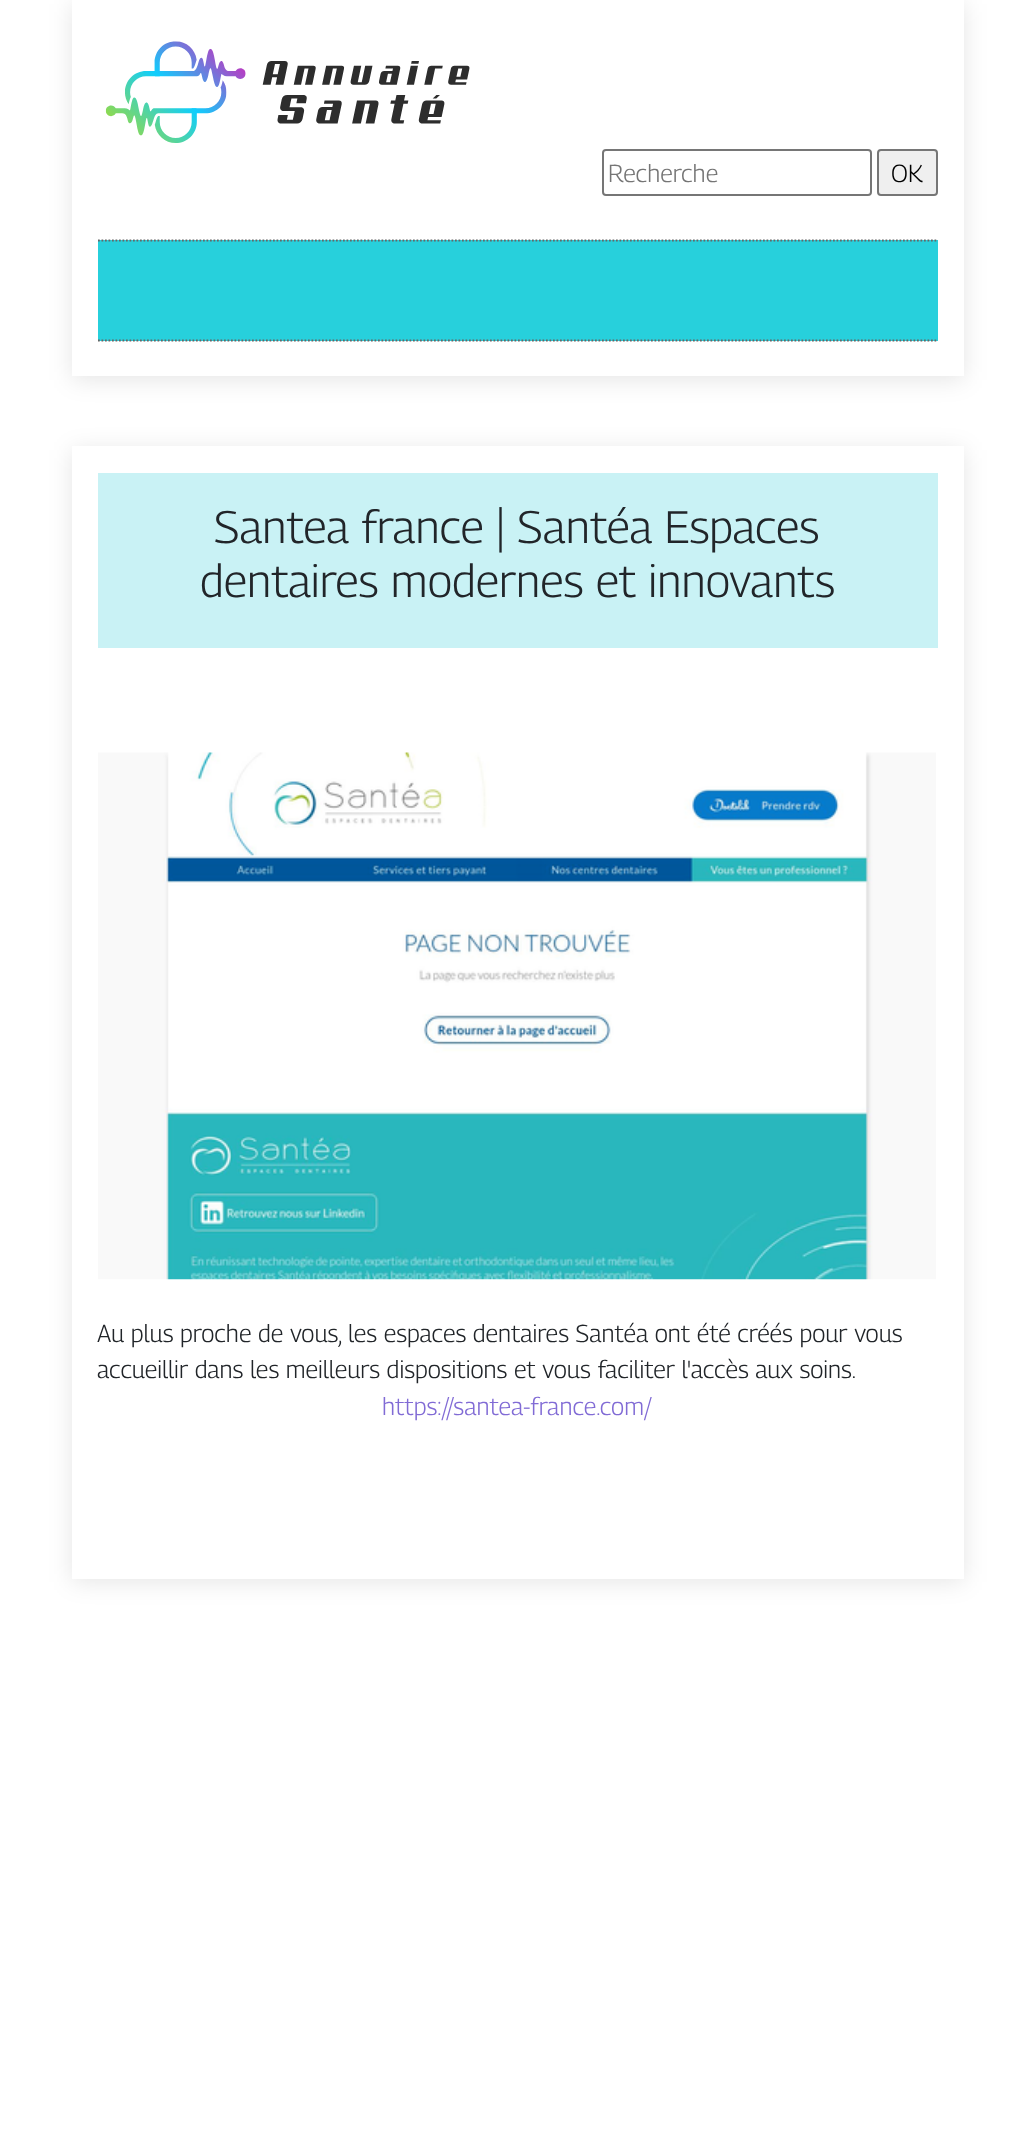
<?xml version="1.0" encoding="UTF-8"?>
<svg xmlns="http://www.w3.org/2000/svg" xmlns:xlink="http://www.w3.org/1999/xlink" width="1034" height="2142">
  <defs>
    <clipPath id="clip1"><path d="M 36 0 h 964 v 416 h -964 z m 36 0 h 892 v 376 h -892 z" clip-rule="evenodd" /></clipPath>
  </defs>
  <rect width="100%" height="100%" fill="#ffffff" />
  <g clip-path="url(#clip1)">
    <rect x="72" y="4" width="892" height="376" fill="#000000" fill-opacity="0.1" filter="blur(11.5px)" />
  </g>
  <image x="105" y="41" width="365" height="102" xlink:href="image1.png" />
  <rect x="603" y="150" width="268" height="45" rx="3" fill="none" stroke="#767676" stroke-width="2" />
  <rect x="878" y="150" width="59" height="45" rx="3" fill="#efefef" stroke="#767676" stroke-width="2" />
  <rect x="98" y="240" width="840" height="101" fill="#27d0dc" />
  <path d="M 98 240.5 h 840" fill="none" stroke="#666666" stroke-width="1.8" stroke-dasharray="1.75 1.75" />
  <path d="M 98 340.5 h 840" fill="none" stroke="#666666" stroke-width="1.8" stroke-dasharray="1.75 1.75" />
  <rect x="72" y="450" width="892" height="1132" fill="#000000" fill-opacity="0.1" filter="blur(11.5px)" />
  <rect x="72" y="446" width="892" height="1133" fill="#ffffff" />
  <rect x="98" y="473" width="840" height="175" fill="#c9f2f5" />
  <image x="98" y="752" width="838" height="528" xlink:href="image2.png" />
  <text x="608" y="182" style="font-family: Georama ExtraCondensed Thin; font-size: 24.5px; font-weight: 100; fill: #757575">Recherche</text>
  <text x="891" y="182" style="font-family: Georama ExtraCondensed Thin; font-size: 24.5px; font-weight: 100; fill: #000000">OK</text>
  <text x="214" y="543" style="font-family: Georama ExtraCondensed Thin; font-size: 45.5px; font-weight: 100; fill: #212529">Santea france | Santéa Espaces</text>
  <text x="200" y="597" style="font-family: Georama ExtraCondensed Thin; font-size: 45.5px; font-weight: 100; fill: #212529">dentaires modernes et innovants</text>
  <text x="97" y="1342" style="font-family: Georama ExtraCondensed Thin; font-size: 24.5px; font-weight: 100; fill: #212529">Au plus proche de vous, les espaces dentaires Santéa ont été créés pour vous</text>
  <text x="97" y="1378" style="font-family: Georama ExtraCondensed Thin; font-size: 24.5px; font-weight: 100; fill: #212529">accueillir dans les meilleurs dispositions et vous faciliter l'accès aux soins.</text>
  <text x="382" y="1415" style="font-family: Georama ExtraCondensed Thin; font-size: 24.5px; font-weight: 100; fill: #816bd5">https://santea-france.com/</text>
</svg>
